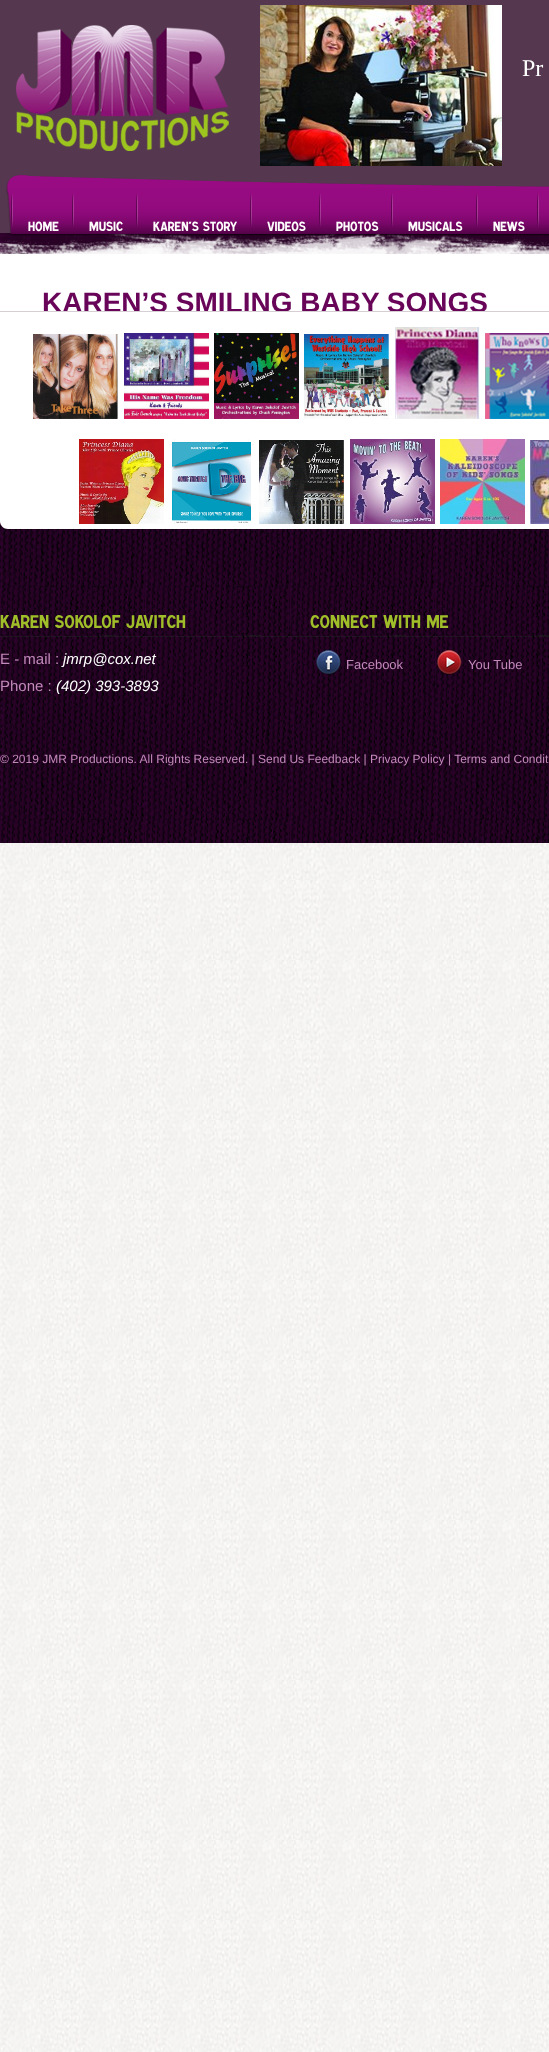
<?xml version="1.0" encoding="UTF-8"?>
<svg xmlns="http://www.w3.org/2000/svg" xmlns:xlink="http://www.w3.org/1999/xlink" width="549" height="2052">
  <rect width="100%" height="100%" fill="#ffffff" />
  <image x="0" y="843" width="549" height="1209" xlink:href="image1.png" />
  <rect width="549" height="233" fill="#55384f" />
  <image x="16" y="25" width="213" height="126" xlink:href="image2.png" />
  <image x="260" y="5" width="242" height="161" xlink:href="image3.png" />
  <image x="0" y="233" width="549" height="21" xlink:href="image7.png" />
  <image x="6" y="175" width="543" height="61" xlink:href="image4.png" />
  <image x="11" y="193" width="2" height="34" xlink:href="image5.png" />
  <image x="72" y="193" width="2" height="34" xlink:href="image6.png" />
  <image x="136" y="193" width="2" height="34" xlink:href="image6.png" />
  <image x="250" y="193" width="2" height="34" xlink:href="image6.png" />
  <image x="319" y="193" width="2" height="34" xlink:href="image6.png" />
  <image x="391" y="193" width="2" height="34" xlink:href="image6.png" />
  <image x="476" y="193" width="2" height="34" xlink:href="image6.png" />
  <image x="537" y="193" width="2" height="34" xlink:href="image6.png" />
  <image x="0" y="521" width="549" height="322" xlink:href="image8.png" />
  <image x="316" y="650" width="25" height="25" xlink:href="image21.png" />
  <image x="437" y="650" width="25" height="25" xlink:href="image22.png" />
  <text x="522" y="76" style="font-family: Liberation Serif; font-size: 24px; fill: #ffffff">Pr</text>
  <text x="28" y="231" style="font-family: 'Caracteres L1'; font-size: 13px; font-weight: 500; fill: #ffffff">HOME</text>
  <text x="89" y="231" style="font-family: 'Caracteres L1'; font-size: 13px; font-weight: 500; fill: #ffffff">MUSIC</text>
  <text x="153" y="231" style="font-family: 'Caracteres L1'; font-size: 13px; font-weight: 500; fill: #ffffff">KAREN’S STORY</text>
  <text x="267" y="231" style="font-family: 'Caracteres L1'; font-size: 13px; font-weight: 500; fill: #ffffff">VIDEOS</text>
  <text x="336" y="231" style="font-family: 'Caracteres L1'; font-size: 13px; font-weight: 500; fill: #ffffff">PHOTOS</text>
  <text x="408" y="231" style="font-family: 'Caracteres L1'; font-size: 13px; font-weight: 500; fill: #ffffff">MUSICALS</text>
  <text x="493" y="231" style="font-family: 'Caracteres L1'; font-size: 13px; font-weight: 500; fill: #ffffff">NEWS</text>
  <text x="42" y="312" style="font-family: Liberation Sans; font-size: 28px; font-weight: bold; fill: #680559">KAREN’S SMILING BABY SONGS</text>
  <path d="M 0 311 h 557 v 210 c 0 4.5 -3.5 8 -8 8 h -541 c -4.5 0 -8 -3.5 -8 -8 z" fill="#ffffff" />
  <rect y="311" width="549" height="1" fill="#d5cfd3" />
  <image x="33" y="334" width="85" height="85" xlink:href="image9.png" />
  <image x="124" y="333" width="85" height="86" xlink:href="image10.png" />
  <image x="214" y="333" width="85" height="86" xlink:href="image11.png" />
  <image x="304" y="334" width="85" height="85" xlink:href="image12.png" />
  <image x="395" y="327" width="85" height="92" xlink:href="image13.png" />
  <image x="485" y="333" width="64" height="86" xlink:href="image14.png" />
  <image x="79" y="439" width="85" height="85" xlink:href="image15.png" />
  <image x="169" y="439" width="85" height="85" xlink:href="image16.png" />
  <image x="259" y="440" width="85" height="84" xlink:href="image17.png" />
  <image x="350" y="439" width="85" height="85" xlink:href="image18.png" />
  <image x="440" y="439" width="85" height="85" xlink:href="image19.png" />
  <image x="530" y="440" width="19" height="84" xlink:href="image20.png" />
  <text x="0" y="628" style="font-family: 'Caracteres L1'; font-size: 18px; font-weight: 500; fill: #a0be29">Karen Sokolof Javitch</text>
  <text x="0" y="664" style="font-family: Liberation Sans; font-size: 15px; fill: #c289bb">E - mail :</text>
  <text x="63" y="664" style="font-family: Liberation Sans; font-size: 15px; font-style: italic; fill: #ffffff">jmrp@cox.net</text>
  <text x="0" y="691" style="font-family: Liberation Sans; font-size: 15px; fill: #c289bb">Phone :</text>
  <text x="56" y="691" style="font-family: Liberation Sans; font-size: 15px; font-style: italic; fill: #ffffff">(402) 393-3893</text>
  <text x="310" y="628" style="font-family: 'Caracteres L1'; font-size: 18px; font-weight: 500; fill: #a0be29">connect with me</text>
  <text x="346" y="669" style="font-family: Liberation Sans; font-size: 13px; fill: #c289bb">Facebook</text>
  <text x="468" y="669" style="font-family: Liberation Sans; font-size: 13px; fill: #c289bb">You Tube</text>
  <text x="0" y="763" style="font-family: Liberation Sans; font-size: 12px; fill: #c289bb">© 2019 JMR Productions. All Rights Reserved. | Send Us Feedback | Privacy Policy | Terms and Condit</text>
</svg>
